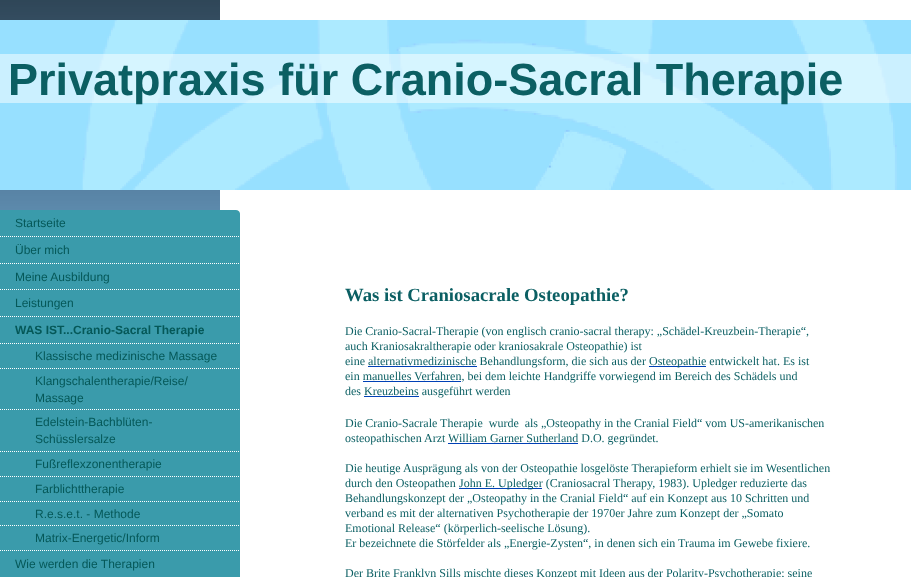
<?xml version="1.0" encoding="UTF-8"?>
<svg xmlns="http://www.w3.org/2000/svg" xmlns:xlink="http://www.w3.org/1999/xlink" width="911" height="577">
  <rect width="100%" height="100%" fill="#88cafd" />
  <image x="0" y="0" width="220" height="210" xlink:href="image1.png" />
  <rect x="220" width="691" height="577" fill="#ffffff" />
  <image x="0" y="20" width="911" height="170" xlink:href="image2.png" />
  <rect y="54" width="911" height="49" fill="#ffffff" fill-opacity="0.5" />
  <rect y="210" width="240" height="367" fill="#3a9bab" />
  <image x="236" y="210" width="4" height="4" xlink:href="image3.png" />
  <image x="0" y="236" width="239" height="1" xlink:href="image4.png" />
  <image x="0" y="263" width="239" height="1" xlink:href="image4.png" />
  <image x="0" y="289" width="239" height="1" xlink:href="image4.png" />
  <image x="0" y="316" width="239" height="1" xlink:href="image4.png" />
  <image x="0" y="343" width="239" height="1" xlink:href="image4.png" />
  <image x="0" y="368" width="239" height="1" xlink:href="image4.png" />
  <image x="0" y="409" width="239" height="1" xlink:href="image4.png" />
  <image x="0" y="451" width="239" height="1" xlink:href="image4.png" />
  <image x="0" y="476" width="239" height="1" xlink:href="image4.png" />
  <image x="0" y="501" width="239" height="1" xlink:href="image4.png" />
  <image x="0" y="525" width="239" height="1" xlink:href="image4.png" />
  <image x="0" y="550" width="239" height="1" xlink:href="image4.png" />
  <rect x="649" y="366" width="57" height="1" fill="#0040b6" />
  <rect x="459" y="488" width="83" height="1" fill="#0040b6" />
  <text x="8" y="95" style="font-family: Liberation Sans; font-size: 45px; font-weight: bold; fill: #0b5f63">Privatpraxis für Cranio-Sacral Therapie</text>
  <text x="15" y="227" style="font-family: Liberation Sans; font-size: 12px; fill: #055858">Startseite</text>
  <text x="15" y="254" style="font-family: Liberation Sans; font-size: 12px; fill: #055858">Über mich</text>
  <text x="15" y="281" style="font-family: Liberation Sans; font-size: 12px; fill: #055858">Meine Ausbildung</text>
  <text x="15" y="307" style="font-family: Liberation Sans; font-size: 12px; fill: #055858">Leistungen</text>
  <text x="15" y="334" style="font-family: Liberation Sans; font-size: 12px; font-weight: bold; fill: #055858">WAS IST...Cranio-Sacral Therapie</text>
  <text x="35" y="360" style="font-family: Liberation Sans; font-size: 12px; fill: #055858">Klassische medizinische Massage</text>
  <text x="35" y="385" style="font-family: Liberation Sans; font-size: 12px; fill: #055858">Klangschalentherapie/Reise/</text>
  <text x="35" y="402" style="font-family: Liberation Sans; font-size: 12px; fill: #055858">Massage</text>
  <text x="35" y="426" style="font-family: Liberation Sans; font-size: 12px; fill: #055858">Edelstein-Bachblüten-</text>
  <text x="35" y="443" style="font-family: Liberation Sans; font-size: 12px; fill: #055858">Schüsslersalze</text>
  <text x="35" y="468" style="font-family: Liberation Sans; font-size: 12px; fill: #055858">Fußreflexzonentherapie</text>
  <text x="35" y="493" style="font-family: Liberation Sans; font-size: 12px; fill: #055858">Farblichttherapie</text>
  <text x="35" y="518" style="font-family: Liberation Sans; font-size: 12px; fill: #055858">R.e.s.e.t. - Methode</text>
  <text x="35" y="542" style="font-family: Liberation Sans; font-size: 12px; fill: #055858">Matrix-Energetic/Inform</text>
  <text x="15" y="568" style="font-family: Liberation Sans; font-size: 12px; fill: #055858">Wie werden die Therapien</text>
  <text x="345" y="301" style="font-family: Liberation Serif; font-size: 18.7px; font-weight: bold; fill: #0b5f63">Was ist Craniosacrale Osteopathie?</text>
  <text x="345" y="335" style="font-family: Liberation Serif; font-size: 12px; fill: #0b5f63">Die Cranio-Sacral-Therapie (von englisch cranio-sacral therapy: „Schädel-Kreuzbein-Therapie“,</text>
  <text x="345" y="350" style="font-family: Liberation Serif; font-size: 12px; fill: #0b5f63">auch Kraniosakraltherapie oder kraniosakrale Osteopathie) ist</text>
  <text x="345" y="365" style="font-family: Liberation Serif; font-size: 12px; fill: #0b5f63">eine alternativmedizinische Behandlungsform, die sich aus der</text>
  <rect x="368" y="366" width="109" height="1" fill="#0040b6" />
  <text x="649" y="365" style="font-family: Liberation Serif; font-size: 12px; fill: #0b5f63">Osteopathie entwickelt hat. Es ist</text>
  <text x="345" y="380" style="font-family: Liberation Serif; font-size: 12px; fill: #0b5f63">ein manuelles Verfahren, bei dem leichte Handgriffe vorwiegend im Bereich des Schädels und</text>
  <rect x="363" y="381" width="98" height="1" fill="#0040b6" />
  <text x="345" y="395" style="font-family: Liberation Serif; font-size: 12px; fill: #0b5f63">des Kreuzbeins ausgeführt werden</text>
  <rect x="364" y="396" width="55" height="1" fill="#0040b6" />
  <text x="345" y="427" style="font-family: Liberation Serif; font-size: 12px; fill: #0b5f63" xml:space="preserve">Die Cranio-Sacrale Therapie  wurde  als „Osteopathy in the Cranial Field“ vom US-amerikanischen</text>
  <text x="345" y="442" style="font-family: Liberation Serif; font-size: 12px; fill: #0b5f63">osteopathischen Arzt William Garner Sutherland D.O. gegründet.</text>
  <rect x="448" y="443" width="130" height="1" fill="#0040b6" />
  <text x="345" y="472" style="font-family: Liberation Serif; font-size: 12px; fill: #0b5f63">Die heutige Ausprägung als von der Osteopathie losgelöste Therapieform erhielt sie im Wesentlichen</text>
  <text x="345" y="487" style="font-family: Liberation Serif; font-size: 12px; fill: #0b5f63">durch den Osteopathen</text>
  <text x="459" y="487" style="font-family: Liberation Serif; font-size: 12px; fill: #0b5f63">John E. Upledger (Craniosacral Therapy, 1983). Upledger reduzierte das</text>
  <text x="345" y="502" style="font-family: Liberation Serif; font-size: 12px; fill: #0b5f63">Behandlungskonzept der „Osteopathy in the Cranial Field“ auf ein Konzept aus 10 Schritten und</text>
  <text x="345" y="517" style="font-family: Liberation Serif; font-size: 12px; fill: #0b5f63">verband es mit der alternativen Psychotherapie der 1970er Jahre zum Konzept der „Somato</text>
  <text x="345" y="532" style="font-family: Liberation Serif; font-size: 12px; fill: #0b5f63">Emotional Release“ (körperlich-seelische Lösung).</text>
  <text x="345" y="547" style="font-family: Liberation Serif; font-size: 12px; fill: #0b5f63">Er bezeichnete die Störfelder als „Energie-Zysten“, in denen sich ein Trauma im Gewebe fixiere.</text>
  <text x="345" y="577" style="font-family: Liberation Serif; font-size: 12px; fill: #0b5f63">Der Brite Franklyn Sills mischte dieses Konzept mit Ideen aus der Polarity-Psychotherapie; seine</text>
</svg>
